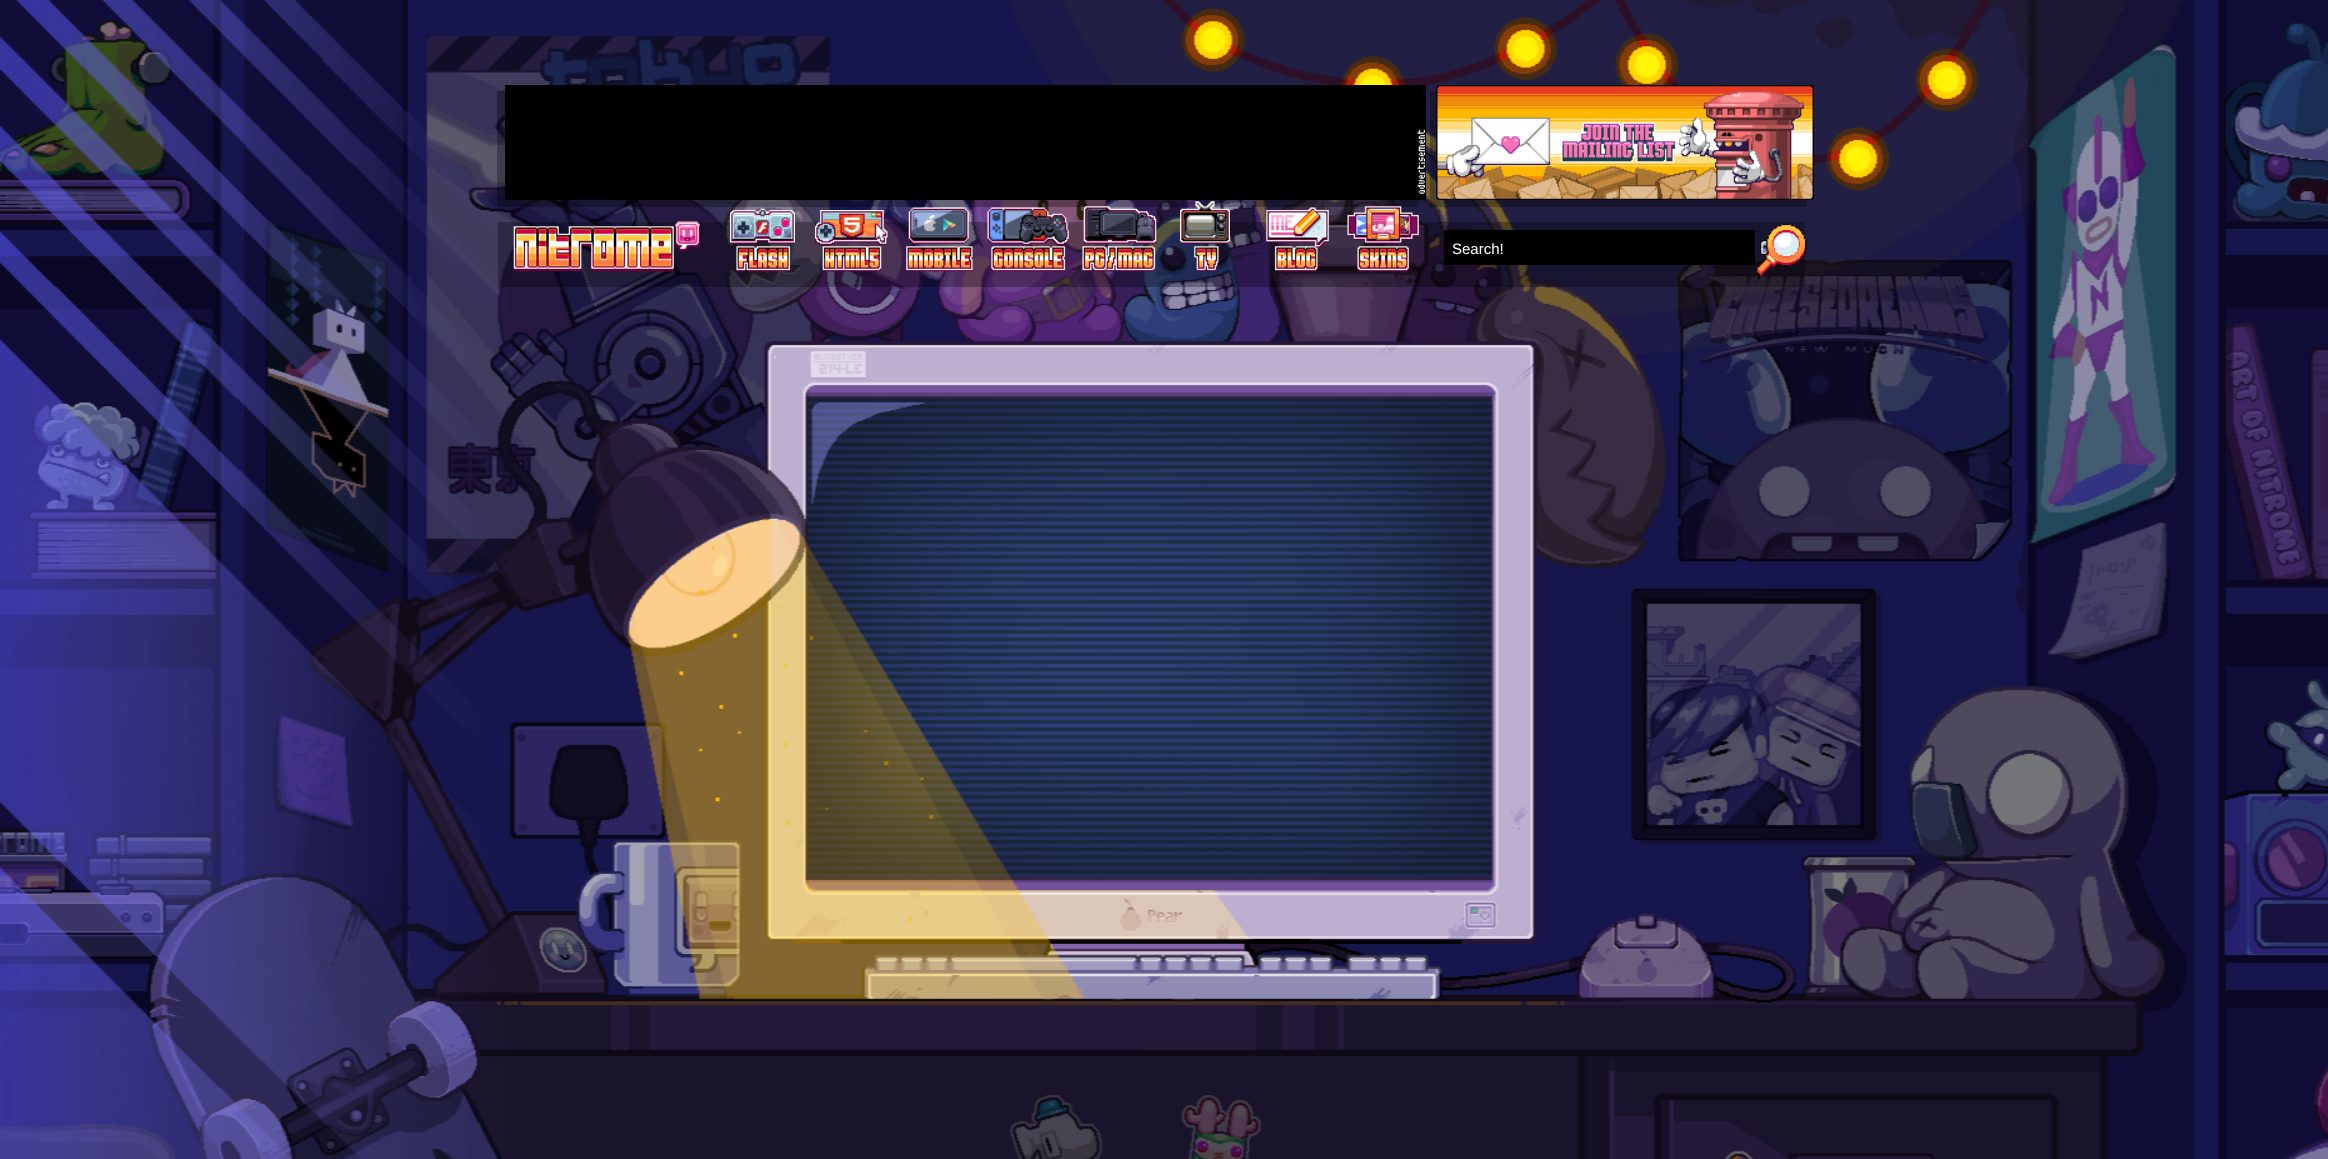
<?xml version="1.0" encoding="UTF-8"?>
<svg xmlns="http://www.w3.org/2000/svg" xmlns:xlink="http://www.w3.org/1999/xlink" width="2328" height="1159">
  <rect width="100%" height="100%" fill="#ffffff" />
  <image x="0" y="0" width="2328" height="1159" xlink:href="image1.png" />
  <rect x="497" y="91" width="922" height="116" fill="#000000" fill-opacity="0.3" />
  <rect x="505" y="85" width="921" height="115" fill="#000000" />
  <rect x="1430" y="91" width="377" height="116" fill="#000000" fill-opacity="0.3" />
  <image x="1436" y="85" width="378" height="115" xlink:href="image2.png" />
  <image x="1436" y="85" width="378" height="115" xlink:href="image3.png" />
  <image x="1417" y="129" width="8" height="65" xlink:href="image4.png" />
  <rect x="498" y="222" width="1307" height="65" fill="#000000" fill-opacity="0.3" />
  <image x="513" y="221" width="187" height="51" xlink:href="image5.png" />
  <image x="730" y="208" width="65" height="64" xlink:href="image6.png" />
  <image x="815" y="210" width="73" height="62" xlink:href="image7.png" />
  <image x="906" y="207" width="67" height="65" xlink:href="image8.png" />
  <image x="987" y="207" width="82" height="65" xlink:href="image9.png" />
  <image x="1082" y="206" width="75" height="66" xlink:href="image10.png" />
  <image x="1180" y="201" width="50" height="71" xlink:href="image11.png" />
  <image x="1266" y="207" width="63" height="65" xlink:href="image12.png" />
  <image x="1347" y="206" width="72" height="66" xlink:href="image13.png" />
  <rect x="1444" y="230" width="311" height="35" fill="#000000" />
  <image x="1760" y="239" width="8" height="16" xlink:href="image14.png" />
  <image x="1803" y="240" width="4" height="15" xlink:href="image15.png" />
  <image x="1756" y="223" width="51" height="54" xlink:href="image16.png" />
  <text x="1452" y="254" style="font-family: Liberation Sans; font-size: 15px; fill: #ffffff">Search!</text>
</svg>
